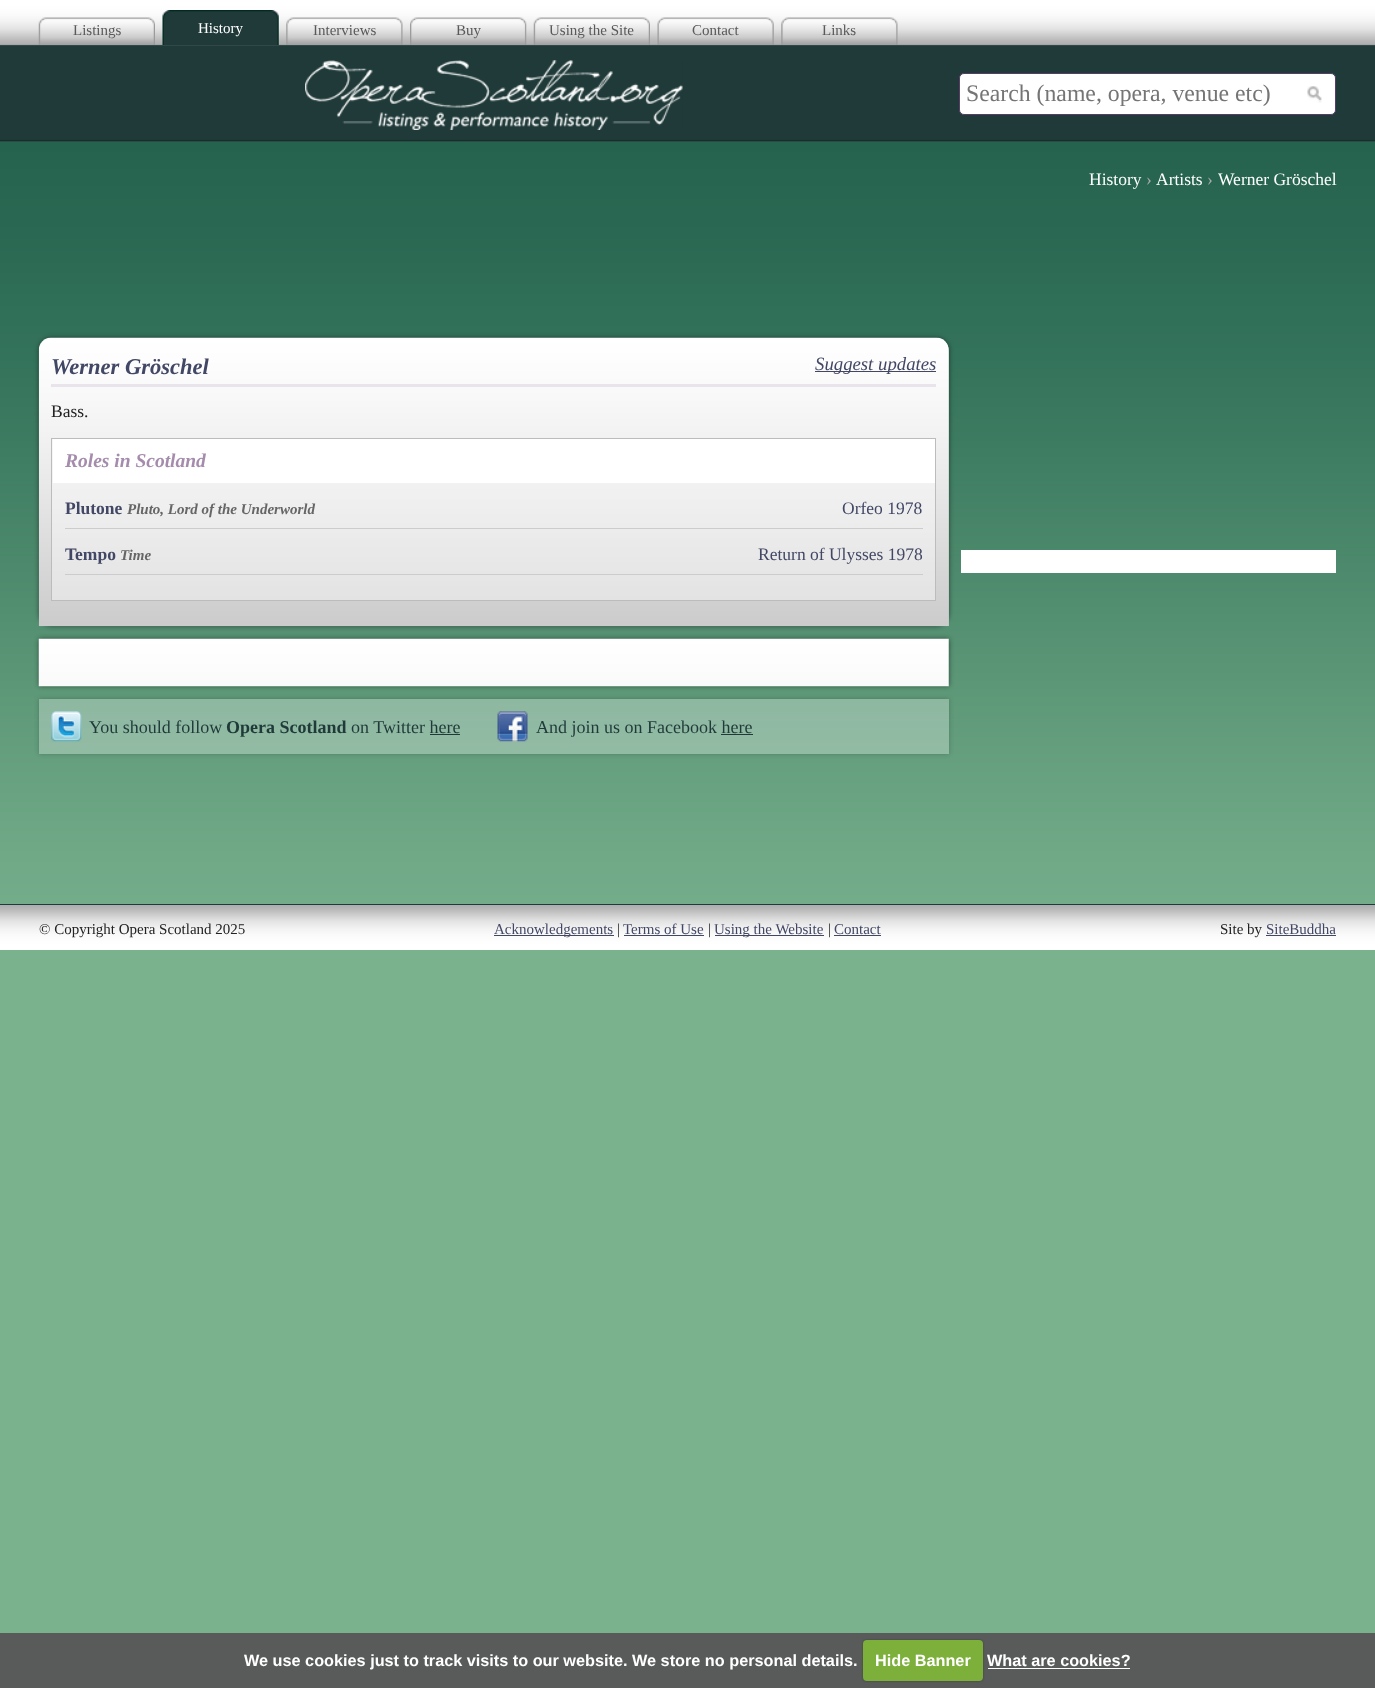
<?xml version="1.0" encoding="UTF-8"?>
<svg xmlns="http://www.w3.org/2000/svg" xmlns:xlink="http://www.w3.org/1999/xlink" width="1375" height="1688">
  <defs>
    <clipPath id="clip1"><path d="M 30 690 h 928 v 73 h -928 z m 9 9 h 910 v 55 h -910 z" clip-rule="evenodd" /></clipPath>
  </defs>
  <rect width="100%" height="100%" fill="#7ab28e" />
  <image x="0" y="0" width="1375" height="904" xlink:href="image1.png" />
  <image x="38" y="17" width="117" height="28" xlink:href="image2.png" />
  <image x="162" y="10" width="117" height="35" xlink:href="image3.png" />
  <image x="286" y="17" width="117" height="28" xlink:href="image4.png" />
  <image x="410" y="17" width="117" height="28" xlink:href="image5.png" />
  <image x="533" y="17" width="117" height="28" xlink:href="image2.png" />
  <image x="657" y="17" width="117" height="28" xlink:href="image6.png" />
  <image x="781" y="17" width="117" height="28" xlink:href="image7.png" />
  <image x="305" y="60" width="378" height="70" xlink:href="image8.png" />
  <rect x="959.5" y="73.5" width="376" height="41" rx="4.5" fill="#ffffff" stroke="#563c67" />
  <image x="1307" y="86" width="15" height="17" xlink:href="image9.png" />
  <rect x="39" y="338" width="910" height="288" rx="13" fill="#000000" fill-opacity="0.5" filter="blur(2.5px)" />
  <path d="M 52 338 h 884 c 7 0 13 6 13 13 v 275 h -910 v -275 c 0 -7 6 -13 13 -13 z" fill="#bcbcbc" />
  <image x="38" y="337" width="911" height="290" xlink:href="image10.png" />
  <rect x="51" y="384" width="885" height="3" fill="#e9e4eb" />
  <rect x="815" y="371" width="121" height="1" fill="#424765" />
  <rect x="51.5" y="438.5" width="884" height="162" fill="#ffffff" fill-opacity="0.4" stroke="#bcbcbc" />
  <rect x="53" y="439" width="882" height="44" fill="#ffffff" />
  <rect x="65" y="528" width="858" height="1" fill="#cccccc" />
  <rect x="65" y="574" width="858" height="1" fill="#cccccc" />
  <rect x="39" y="639" width="910" height="47" fill="#000000" fill-opacity="0.5" filter="blur(2.5px)" />
  <image x="38" y="638" width="911" height="49" xlink:href="image11.png" />
  <g clip-path="url(#clip1)">
    <rect x="39" y="699" width="910" height="55" fill="#000000" fill-opacity="0.2" filter="blur(2.5px)" />
  </g>
  <rect x="39" y="699" width="910" height="55" fill="#fefefe" fill-opacity="0.3" />
  <image x="51" y="711" width="31" height="31" xlink:href="image12.png" />
  <rect x="430" y="734" width="30" height="1" fill="#1f3a39" />
  <image x="497" y="711" width="31" height="31" xlink:href="image13.png" />
  <rect x="721" y="734" width="32" height="1" fill="#1f3a39" />
  <rect x="961" y="550" width="375" height="23" fill="#ffffff" />
  <image x="0" y="905" width="1375" height="45" xlink:href="image14.png" />
  <rect y="904" width="1375" height="1" fill="#1f3a39" />
  <rect x="494" y="935" width="120" height="1" fill="#424765" />
  <rect x="624" y="935" width="80" height="1" fill="#424765" />
  <rect x="715" y="935" width="109" height="1" fill="#424765" />
  <rect x="834" y="935" width="47" height="1" fill="#424765" />
  <rect x="1266" y="935" width="70" height="1" fill="#424765" />
  <rect y="1633" width="1375" height="55" fill="#585b59" />
  <rect x="863" y="1640" width="120" height="41" rx="4" fill="#000000" fill-opacity="0.25" filter="blur(1px)" />
  <rect x="863" y="1640" width="120" height="41" rx="4" fill="#7daf3b" />
  <rect x="988" y="1668" width="142" height="1" fill="#ffffff" />
  <text x="73" y="35" style="font-family: Liberation Serif; font-size: 15px; fill: #595959">Listings</text>
  <text x="198" y="33" style="font-family: Liberation Serif; font-size: 15px; fill: #ffffff">History</text>
  <text x="313" y="35" style="font-family: Liberation Serif; font-size: 15px; fill: #595959">Interviews</text>
  <text x="456" y="35" style="font-family: Liberation Serif; font-size: 15px; fill: #595959">Buy</text>
  <text x="549" y="35" style="font-family: Liberation Serif; font-size: 15px; fill: #595959">Using the Site</text>
  <text x="692" y="35" style="font-family: Liberation Serif; font-size: 15px; fill: #595959">Contact</text>
  <text x="822" y="35" style="font-family: Liberation Serif; font-size: 15px; fill: #595959">Links</text>
  <text x="966" y="101" style="font-family: Liberation Serif; font-size: 23.75px; fill: #757575">Search (name, opera, venue etc)</text>
  <text x="1089" y="185" style="font-family: Liberation Serif; font-size: 17.5px; fill: #ffffff">History</text>
  <text x="1146" y="185" style="font-family: Liberation Serif; font-size: 17.5px; fill: #aaaaaa">›</text>
  <text x="1156" y="185" style="font-family: Liberation Serif; font-size: 17.5px; fill: #ffffff">Artists</text>
  <text x="1207" y="185" style="font-family: Liberation Serif; font-size: 17.5px; fill: #aaaaaa">›</text>
  <text x="1218" y="185" style="font-family: Liberation Serif; font-size: 17.5px; fill: #ffffff">Werner Gröschel</text>
  <text x="51" y="374" style="font-family: Liberation Serif; font-size: 22.5px; font-weight: bold; font-style: italic; fill: #424765">Werner Gröschel</text>
  <text x="815" y="370" style="font-family: Liberation Serif; font-size: 18.75px; font-style: italic; fill: #424765">Suggest updates</text>
  <text x="51" y="417" style="font-family: Liberation Serif; font-size: 17.5px; fill: #222222">Bass.</text>
  <text x="65" y="467" style="font-family: Liberation Serif; font-size: 19.5px; font-weight: bold; font-style: italic; fill: #a58cad">Roles in Scotland</text>
  <text x="65" y="514" style="font-family: Liberation Serif; font-size: 17.5px; font-weight: bold; fill: #424765">Plutone</text>
  <text x="127" y="514" style="font-family: Liberation Serif; font-size: 15px; font-weight: bold; font-style: italic; fill: #666666">Pluto, Lord of the Underworld</text>
  <text x="842" y="514" style="font-family: Liberation Serif; font-size: 17.5px; fill: #424765">Orfeo 1978</text>
  <text x="65" y="560" style="font-family: Liberation Serif; font-size: 17.5px; font-weight: bold; fill: #424765">Tempo</text>
  <text x="120" y="560" style="font-family: Liberation Serif; font-size: 15px; font-weight: bold; font-style: italic; fill: #666666">Time</text>
  <text x="758" y="560" style="font-family: Liberation Serif; font-size: 17.5px; fill: #424765">Return of Ulysses 1978</text>
  <text x="89" y="733" style="font-family: Liberation Serif; font-size: 18px; fill: #1f3a39">You should follow</text>
  <text x="226" y="733" style="font-family: Liberation Serif; font-size: 18px; font-weight: bold; fill: #1f3a39">Opera Scotland</text>
  <text x="351" y="733" style="font-family: Liberation Serif; font-size: 18px; fill: #1f3a39">on Twitter here</text>
  <text x="536" y="733" style="font-family: Liberation Serif; font-size: 18px; fill: #1f3a39">And join us on Facebook here</text>
  <text x="39" y="934" style="font-family: Liberation Serif; font-size: 15px; fill: #222222">© Copyright Opera Scotland 2025</text>
  <text x="494" y="934" style="font-family: Liberation Serif; font-size: 15px; fill: #424765">Acknowledgements</text>
  <text x="617" y="934" style="font-family: Liberation Serif; font-size: 15px; fill: #222222">|</text>
  <text x="623" y="934" style="font-family: Liberation Serif; font-size: 15px; fill: #424765">Terms of Use</text>
  <text x="708" y="934" style="font-family: Liberation Serif; font-size: 15px; fill: #222222">|</text>
  <text x="714" y="934" style="font-family: Liberation Serif; font-size: 15px; fill: #424765">Using the Website</text>
  <text x="828" y="934" style="font-family: Liberation Serif; font-size: 15px; fill: #222222">|</text>
  <text x="834" y="934" style="font-family: Liberation Serif; font-size: 15px; fill: #424765">Contact</text>
  <text x="1220" y="934" style="font-family: Liberation Serif; font-size: 15px; fill: #222222">Site by</text>
  <text x="1266" y="934" style="font-family: Liberation Serif; font-size: 15px; fill: #424765">SiteBuddha</text>
  <text x="244" y="1666" style="font-family: Liberation Sans; font-size: 16.25px; font-weight: bold; fill: #ffffff">We use cookies just to track visits to our website. We store no personal details.</text>
  <text x="875" y="1666" style="font-family: Liberation Sans; font-size: 16.25px; font-weight: bold; fill: #ffffff">Hide Banner</text>
  <text x="987" y="1666" style="font-family: Liberation Sans; font-size: 16.25px; font-weight: bold; fill: #ffffff">What are cookies?</text>
</svg>
